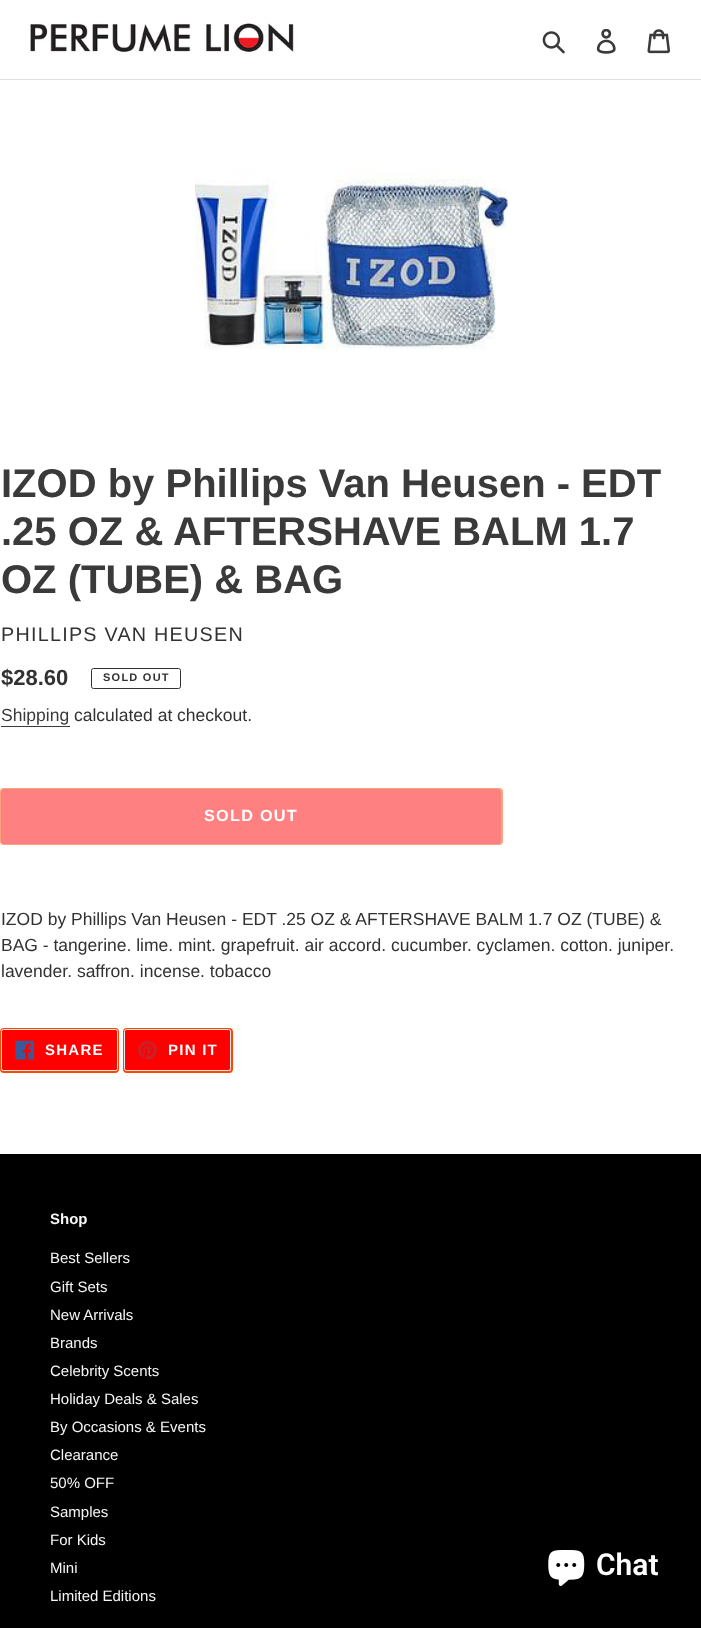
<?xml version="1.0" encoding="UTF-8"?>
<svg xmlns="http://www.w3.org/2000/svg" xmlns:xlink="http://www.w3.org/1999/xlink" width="701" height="1628">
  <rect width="100%" height="100%" fill="#ffffff" />
  <rect y="79" width="701" height="1" fill="#dee2e6" />
  <image x="30" y="22" width="264" height="32" xlink:href="image1.png" />
  <image x="542" y="31" width="23" height="23" xlink:href="image2.png" />
  <image x="596" y="29" width="20" height="25" xlink:href="image3.png" />
  <image x="647" y="29" width="23" height="25" xlink:href="image4.png" />
  <image x="195" y="169" width="313" height="181" xlink:href="image5.png" />
  <rect x="91.5" y="668.5" width="89" height="20" rx="2" fill="none" stroke="#333232" />
  <rect x="1" y="726" width="69" height="1" fill="#3a3a3a" />
  <rect x="1" y="789" width="501" height="55" rx="3" fill="none" stroke="#ffa280" stroke-width="2" />
  <rect x="1.5" y="789.5" width="499" height="54" rx="2" fill="#ff8080" stroke="#f58383" />
  <rect x="1" y="1029" width="117" height="43" rx="3" fill="none" stroke="#ff4500" stroke-width="2" />
  <rect x="1.5" y="1029.5" width="116" height="41" rx="2" fill="#ff0000" stroke="#ebebeb" />
  <image x="15" y="1040" width="20" height="20" xlink:href="image6.png" />
  <rect x="124" y="1029" width="108" height="43" rx="3" fill="none" stroke="#ff4500" stroke-width="2" />
  <rect x="124.5" y="1029.5" width="106" height="41" rx="2" fill="#ff0000" stroke="#ebebeb" />
  <image x="138" y="1040" width="19" height="20" xlink:href="image7.png" />
  <rect y="1154" width="701" height="474" fill="#000000" />
  <image x="548" y="1550" width="37" height="36" xlink:href="image8.png" />
  <text x="1" y="497" style="font-family: Liberation Sans; font-size: 40px; font-weight: bold; fill: #3a3a3a">IZOD by Phillips Van Heusen - EDT</text>
  <text x="1" y="545" style="font-family: Liberation Sans; font-size: 40px; font-weight: bold; fill: #3a3a3a">.25 OZ &amp; AFTERSHAVE BALM 1.7</text>
  <text x="1" y="593" style="font-family: Liberation Sans; font-size: 40px; font-weight: bold; fill: #3a3a3a">OZ (TUBE) &amp; BAG</text>
  <text x="1" y="641" style="font-family: Liberation Sans; font-size: 19.75px; letter-spacing: 1.25px; fill: #333232">PHILLIPS VAN HEUSEN</text>
  <text x="1" y="685" style="font-family: Liberation Sans; font-size: 22px; font-weight: bold; fill: #333232">$28.60</text>
  <text x="103" y="681" style="font-family: Liberation Sans; font-size: 11px; font-weight: bold; letter-spacing: 1.25px; fill: #333232">SOLD OUT</text>
  <text x="1" y="721" style="font-family: Liberation Sans; font-size: 17.5px; fill: #3a3a3a">Shipping</text>
  <text x="74" y="721" style="font-family: Liberation Sans; font-size: 17.5px; fill: #333232">calculated at checkout.</text>
  <text x="204" y="821" style="font-family: Liberation Sans; font-size: 16.25px; font-weight: bold; letter-spacing: 1.25px; fill: #ffffff">SOLD OUT</text>
  <text x="1" y="925" style="font-family: Liberation Sans; font-size: 17.5px; fill: #333232">IZOD by Phillips Van Heusen - EDT .25 OZ &amp; AFTERSHAVE BALM 1.7 OZ (TUBE) &amp;</text>
  <text x="1" y="951" style="font-family: Liberation Sans; font-size: 17.5px; fill: #333232">BAG - tangerine. lime. mint. grapefruit. air accord. cucumber. cyclamen. cotton. juniper.</text>
  <text x="1" y="977" style="font-family: Liberation Sans; font-size: 17.5px; fill: #333232">lavender. saffron. incense. tobacco</text>
  <text x="45" y="1055" style="font-family: Liberation Sans; font-size: 15px; font-weight: bold; letter-spacing: 1.25px; fill: #ffffff">SHARE</text>
  <text x="168" y="1055" style="font-family: Liberation Sans; font-size: 15px; font-weight: bold; letter-spacing: 1.25px; fill: #ffffff">PIN IT</text>
  <text x="50" y="1224" style="font-family: Liberation Sans; font-size: 15px; font-weight: bold; fill: #f6f6f6">Shop</text>
  <text x="50" y="1263" style="font-family: Liberation Sans; font-size: 15px; fill: #f6f6f6">Best Sellers</text>
  <text x="50" y="1292" style="font-family: Liberation Sans; font-size: 15px; fill: #f6f6f6">Gift Sets</text>
  <text x="50" y="1320" style="font-family: Liberation Sans; font-size: 15px; fill: #f6f6f6">New Arrivals</text>
  <text x="50" y="1348" style="font-family: Liberation Sans; font-size: 15px; fill: #f6f6f6">Brands</text>
  <text x="50" y="1376" style="font-family: Liberation Sans; font-size: 15px; fill: #f6f6f6">Celebrity Scents</text>
  <text x="50" y="1404" style="font-family: Liberation Sans; font-size: 15px; fill: #f6f6f6">Holiday Deals &amp; Sales</text>
  <text x="50" y="1432" style="font-family: Liberation Sans; font-size: 15px; fill: #f6f6f6">By Occasions &amp; Events</text>
  <text x="50" y="1460" style="font-family: Liberation Sans; font-size: 15px; fill: #f6f6f6">Clearance</text>
  <text x="50" y="1488" style="font-family: Liberation Sans; font-size: 15px; fill: #f6f6f6">50% OFF</text>
  <text x="50" y="1517" style="font-family: Liberation Sans; font-size: 15px; fill: #f6f6f6">Samples</text>
  <text x="50" y="1545" style="font-family: Liberation Sans; font-size: 15px; fill: #f6f6f6">For Kids</text>
  <text x="50" y="1573" style="font-family: Liberation Sans; font-size: 15px; fill: #f6f6f6">Mini</text>
  <text x="50" y="1601" style="font-family: Liberation Sans; font-size: 15px; fill: #f6f6f6">Limited Editions</text>
  <text x="596" y="1575" style="font-family: Roboto; font-size: 30px; font-weight: 600; fill: #ffffff">Chat</text>
</svg>
